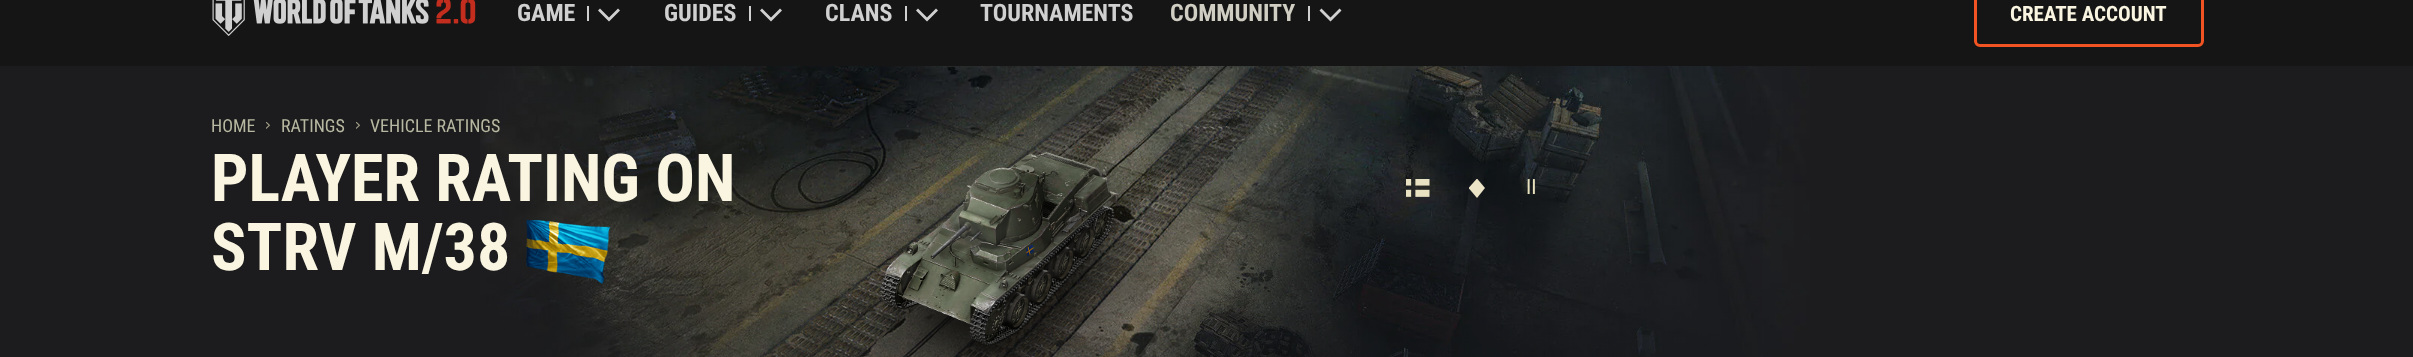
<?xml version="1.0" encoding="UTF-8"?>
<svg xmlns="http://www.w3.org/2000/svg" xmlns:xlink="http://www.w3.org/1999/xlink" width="2413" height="357">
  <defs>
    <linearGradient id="g1" gradientUnits="userSpaceOnUse" x1="1207" y1="-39" x2="1207" y2="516"><stop offset="0.07" stop-color="#1c1c1e" stop-opacity="0" /><stop offset="0.74" stop-color="#1c1c1e" stop-opacity="0.5" /><stop offset="1" stop-color="#1c1c1e" /></linearGradient>
    <clipPath id="clip1"><rect x="1469" y="179" width="16" height="19" /></clipPath>
  </defs>
  <rect width="100%" height="100%" fill="#1c1c1e" />
  <rect width="2413" height="66" fill="#151515" />
  <image x="212" y="0" width="264" height="36" xlink:href="image1.png" />
  <rect x="587" y="6" width="2" height="15" fill="#d0d0d0" />
  <path d="M 609 21.5 l 11 -11 l -2 -2 l -9 9 l -9 -9 l -2 2 z" fill="#d0d0d0" />
  <rect x="749" y="6" width="2" height="15" fill="#d0d0d0" />
  <path d="M 771 21.5 l 11 -11 l -2 -2 l -9 9 l -9 -9 l -2 2 z" fill="#d0d0d0" />
  <rect x="905" y="6" width="2" height="15" fill="#d0d0d0" />
  <path d="M 927 21.5 l 11 -11 l -2 -2 l -9 9 l -9 -9 l -2 2 z" fill="#d0d0d0" />
  <rect x="1308" y="6" width="2" height="15" fill="#d0d0d0" />
  <path d="M 1330.5 21.5 l 11 -11 l -2 -2 l -9 9 l -9 -9 l -2 2 z" fill="#d0d0d0" />
  <rect x="1975.5" y="-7.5" width="227" height="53" rx="4.5" fill="none" stroke="#f25322" stroke-width="3" />
  <image x="480" y="66" width="1330" height="291" xlink:href="image2.png" />
  <rect x="489" y="66" width="1274" height="291" fill="url(#g1)" />
  <image x="845" y="151" width="307" height="206" xlink:href="image3.png" />
  <image x="266" y="122" width="4" height="7" xlink:href="image4.png" />
  <image x="356" y="122" width="4" height="7" xlink:href="image4.png" />
  <image x="526" y="220" width="85" height="64" xlink:href="image5.png" />
  <image x="1406" y="179" width="24" height="18" xlink:href="image6.png" />
  <g clip-path="url(#clip1)">
    <path d="M 1477 178.5 l -8.5 9.5 l 8.5 10 l 8 -10 z" fill="#ebe4c7" />
  </g>
  <text x="517" y="21" style="font-family: Roboto Condensed; font-size: 24px; font-weight: bold; fill: #d0d0d0">GAME</text>
  <text x="664" y="21" style="font-family: Roboto Condensed; font-size: 24px; font-weight: bold; fill: #d0d0d0">GUIDES</text>
  <text x="825" y="21" style="font-family: Roboto Condensed; font-size: 24px; font-weight: bold; fill: #d0d0d0">CLANS</text>
  <text x="980" y="21" style="font-family: Roboto Condensed; font-size: 24px; font-weight: bold; fill: #d0d0d0">TOURNAMENTS</text>
  <text x="1170" y="21" style="font-family: Roboto Condensed; font-size: 24px; font-weight: bold; fill: #d0cdc2">COMMUNITY</text>
  <text x="2010" y="21" style="font-family: Roboto Condensed; font-size: 21px; font-weight: bold; fill: #f9f5e1">CREATE ACCOUNT</text>
  <text x="211" y="132" style="font-family: Roboto Condensed; font-size: 18px; fill: #b8b8a2">HOME</text>
  <text x="281" y="132" style="font-family: Roboto Condensed; font-size: 18px; fill: #b8b8a2">RATINGS</text>
  <text x="370" y="132" style="font-family: Roboto Condensed; font-size: 18px; fill: #b8b8a2">VEHICLE RATINGS</text>
  <text x="211" y="201" style="font-family: Roboto Condensed; font-size: 66px; font-weight: bold; fill: #f9f5e1">PLAYER RATING ON</text>
  <text x="211" y="270" style="font-family: Roboto Condensed; font-size: 66px; font-weight: bold; fill: #f9f5e1">STRV M/38</text>
  <text x="1526" y="194" style="font-family: Roboto Condensed; font-size: 21px; fill: #e9e2bf">II</text>
</svg>
